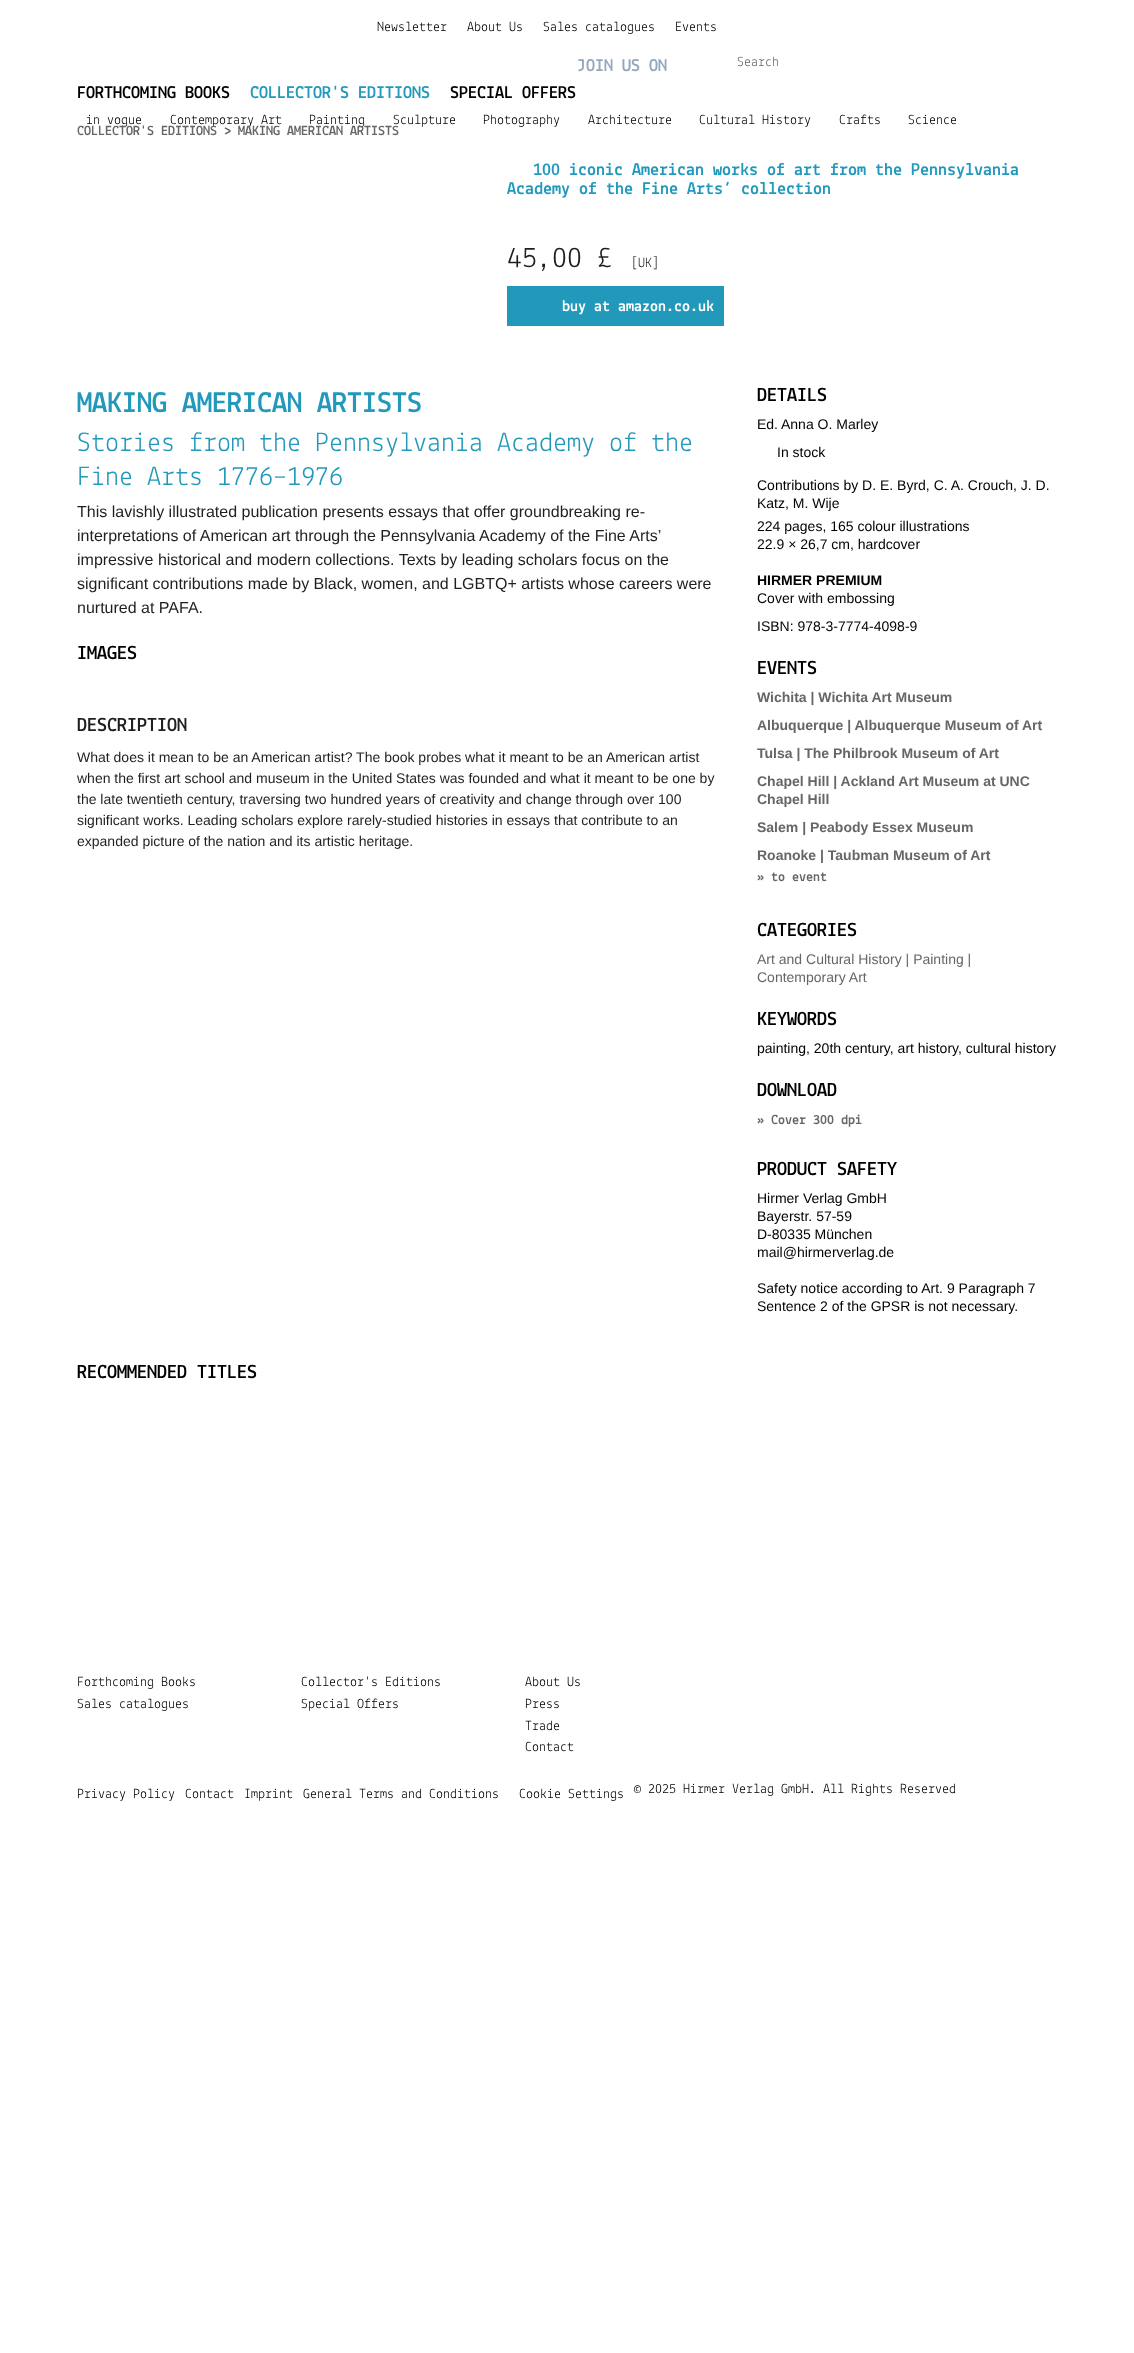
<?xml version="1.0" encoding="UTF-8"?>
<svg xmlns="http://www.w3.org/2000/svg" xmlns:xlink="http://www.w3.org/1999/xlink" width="1134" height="2353">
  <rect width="100%" height="100%" fill="#ffffff" />
  <rect x="507" y="286" width="217" height="40" fill="#2299bb" />
  <text x="377" y="31" style="font-family: Lekton; font-size: 14px; fill: #000000">Newsletter</text>
  <text x="467" y="31" style="font-family: Lekton; font-size: 14px; fill: #000000">About Us</text>
  <text x="543" y="31" style="font-family: Lekton; font-size: 14px; fill: #000000">Sales catalogues</text>
  <text x="675" y="31" style="font-family: Lekton; font-size: 14px; fill: #000000">Events</text>
  <text x="577" y="71" style="font-family: Lekton; font-size: 18px; font-weight: bold; fill: #93a7bf">JOIN US ON</text>
  <text x="737" y="66" style="font-family: Lekton; font-size: 14px; fill: #666666">Search</text>
  <text x="77" y="98" style="font-family: Lekton; font-size: 18px; font-weight: bold; fill: #000000">FORTHCOMING BOOKS</text>
  <text x="250" y="98" style="font-family: Lekton; font-size: 18px; font-weight: bold; fill: #2299bb">COLLECTOR'S EDITIONS</text>
  <text x="450" y="98" style="font-family: Lekton; font-size: 18px; font-weight: bold; fill: #000000">SPECIAL OFFERS</text>
  <text x="86" y="124" style="font-family: Lekton; font-size: 14px; fill: #000000">in vogue</text>
  <text x="170" y="124" style="font-family: Lekton; font-size: 14px; fill: #000000">Contemporary Art</text>
  <text x="309" y="124" style="font-family: Lekton; font-size: 14px; fill: #000000">Painting</text>
  <text x="393" y="124" style="font-family: Lekton; font-size: 14px; fill: #000000">Sculpture</text>
  <text x="483" y="124" style="font-family: Lekton; font-size: 14px; fill: #000000">Photography</text>
  <text x="588" y="124" style="font-family: Lekton; font-size: 14px; fill: #000000">Architecture</text>
  <text x="699" y="124" style="font-family: Lekton; font-size: 14px; fill: #000000">Cultural History</text>
  <text x="839" y="124" style="font-family: Lekton; font-size: 14px; fill: #000000">Crafts</text>
  <text x="908" y="124" style="font-family: Lekton; font-size: 14px; fill: #000000">Science</text>
  <text x="77" y="135" style="font-family: Lekton; font-size: 14px; font-weight: bold; fill: #666666">COLLECTOR'S EDITIONS &gt; MAKING AMERICAN ARTISTS</text>
  <text x="533" y="175" style="font-family: Lekton; font-size: 18px; font-weight: bold; fill: #2299bb">100 iconic American works of art from the Pennsylvania</text>
  <text x="507" y="194" style="font-family: Lekton; font-size: 18px; font-weight: bold; fill: #2299bb">Academy of the Fine Arts’ collection</text>
  <text x="507" y="267" style="font-family: Lekton; font-size: 30px; fill: #1f1f1f">45,00 £</text>
  <text x="631" y="267" style="font-family: Lekton; font-size: 14px; fill: #1f1f1f">[UK]</text>
  <text x="562" y="311" style="font-family: Lekton; font-size: 16px; font-weight: bold; fill: #ffffff">buy at amazon.co.uk</text>
  <text x="77" y="412" style="font-family: Lekton; font-size: 30px; font-weight: bold; fill: #2299bb">MAKING AMERICAN ARTISTS</text>
  <text x="77" y="451" style="font-family: Lekton; font-size: 28px; fill: #2299bb">Stories from the Pennsylvania Academy of the</text>
  <text x="77" y="485" style="font-family: Lekton; font-size: 28px; fill: #2299bb">Fine Arts 1776–1976</text>
  <text x="77" y="517" style="font-family: Liberation Sans; font-size: 16px; fill: #1f1f1f">This lavishly illustrated publication presents essays that offer groundbreaking re-</text>
  <text x="77" y="541" style="font-family: Liberation Sans; font-size: 16px; fill: #1f1f1f">interpretations of American art through the Pennsylvania Academy of the Fine Arts’</text>
  <text x="77" y="565" style="font-family: Liberation Sans; font-size: 16px; fill: #1f1f1f">impressive historical and modern collections. Texts by leading scholars focus on the</text>
  <text x="77" y="589" style="font-family: Liberation Sans; font-size: 16px; fill: #1f1f1f">significant contributions made by Black, women, and LGBTQ+ artists whose careers were</text>
  <text x="77" y="613" style="font-family: Liberation Sans; font-size: 16px; fill: #1f1f1f">nurtured at PAFA.</text>
  <text x="77" y="659" style="font-family: Lekton; font-size: 20px; font-weight: bold; fill: #000000">IMAGES</text>
  <text x="77" y="731" style="font-family: Lekton; font-size: 20px; font-weight: bold; fill: #1f1f1f">DESCRIPTION</text>
  <text x="77" y="762" style="font-family: Liberation Sans; font-size: 14px; fill: #1f1f1f">What does it mean to be an American artist? The book probes what it meant to be an American artist</text>
  <text x="77" y="783" style="font-family: Liberation Sans; font-size: 14px; fill: #1f1f1f">when the first art school and museum in the United States was founded and what it meant to be one by</text>
  <text x="77" y="804" style="font-family: Liberation Sans; font-size: 14px; fill: #1f1f1f">the late twentieth century, traversing two hundred years of creativity and change through over 100</text>
  <text x="77" y="825" style="font-family: Liberation Sans; font-size: 14px; fill: #1f1f1f">significant works. Leading scholars explore rarely-studied histories in essays that contribute to an</text>
  <text x="77" y="846" style="font-family: Liberation Sans; font-size: 14px; fill: #1f1f1f">expanded picture of the nation and its artistic heritage.</text>
  <text x="757" y="401" style="font-family: Lekton; font-size: 20px; font-weight: bold; fill: #000000">DETAILS</text>
  <text x="757" y="429" style="font-family: Liberation Sans; font-size: 14px; fill: #000000">Ed.</text>
  <text x="781" y="429" style="font-family: Liberation Sans; font-size: 14px; fill: #000000">Anna O. Marley</text>
  <text x="777" y="457" style="font-family: Liberation Sans; font-size: 14px; fill: #000000">In stock</text>
  <text x="757" y="490" style="font-family: Liberation Sans; font-size: 14px; fill: #000000">Contributions by D. E. Byrd, C. A. Crouch, J. D.</text>
  <text x="757" y="508" style="font-family: Liberation Sans; font-size: 14px; fill: #000000">Katz, M. Wije</text>
  <text x="757" y="531" style="font-family: Liberation Sans; font-size: 14px; fill: #000000">224 pages, 165 colour illustrations</text>
  <text x="757" y="549" style="font-family: Liberation Sans; font-size: 14px; fill: #000000">22.9 × 26,7 cm, hardcover</text>
  <text x="757" y="585" style="font-family: Liberation Sans; font-size: 14px; font-weight: bold; fill: #000000">HIRMER PREMIUM</text>
  <text x="757" y="603" style="font-family: Liberation Sans; font-size: 14px; fill: #000000">Cover with embossing</text>
  <text x="757" y="631" style="font-family: Liberation Sans; font-size: 14px; fill: #000000">ISBN: 978-3-7774-4098-9</text>
  <text x="757" y="674" style="font-family: Lekton; font-size: 20px; font-weight: bold; fill: #000000">EVENTS</text>
  <text x="757" y="702" style="font-family: Liberation Sans; font-size: 14px; font-weight: bold; fill: #666666">Wichita | Wichita Art Museum</text>
  <text x="757" y="730" style="font-family: Liberation Sans; font-size: 14px; font-weight: bold; fill: #666666">Albuquerque | Albuquerque Museum of Art</text>
  <text x="757" y="758" style="font-family: Liberation Sans; font-size: 14px; font-weight: bold; fill: #666666">Tulsa | The Philbrook Museum of Art</text>
  <text x="757" y="786" style="font-family: Liberation Sans; font-size: 14px; font-weight: bold; fill: #666666">Chapel Hill | Ackland Art Museum at UNC</text>
  <text x="757" y="804" style="font-family: Liberation Sans; font-size: 14px; font-weight: bold; fill: #666666">Chapel Hill</text>
  <text x="757" y="832" style="font-family: Liberation Sans; font-size: 14px; font-weight: bold; fill: #666666">Salem | Peabody Essex Museum</text>
  <text x="757" y="860" style="font-family: Liberation Sans; font-size: 14px; font-weight: bold; fill: #666666">Roanoke | Taubman Museum of Art</text>
  <text x="757" y="881" style="font-family: Lekton; font-size: 14px; font-weight: bold; fill: #666666">» to event</text>
  <text x="757" y="936" style="font-family: Lekton; font-size: 20px; font-weight: bold; fill: #000000">CATEGORIES</text>
  <text x="757" y="964" style="font-family: Liberation Sans; font-size: 14px; fill: #666666">Art and Cultural History | Painting |</text>
  <text x="757" y="982" style="font-family: Liberation Sans; font-size: 14px; fill: #666666">Contemporary Art</text>
  <text x="757" y="1025" style="font-family: Lekton; font-size: 20px; font-weight: bold; fill: #000000">KEYWORDS</text>
  <text x="757" y="1053" style="font-family: Liberation Sans; font-size: 14px; fill: #000000">painting, 20th century, art history, cultural history</text>
  <text x="757" y="1096" style="font-family: Lekton; font-size: 20px; font-weight: bold; fill: #000000">DOWNLOAD</text>
  <text x="757" y="1124" style="font-family: Lekton; font-size: 14px; font-weight: bold; fill: #666666">» Cover 300 dpi</text>
  <text x="757" y="1175" style="font-family: Lekton; font-size: 20px; font-weight: bold; fill: #000000">PRODUCT SAFETY</text>
  <text x="757" y="1203" style="font-family: Liberation Sans; font-size: 14px; fill: #000000">Hirmer Verlag GmbH</text>
  <text x="757" y="1221" style="font-family: Liberation Sans; font-size: 14px; fill: #000000">Bayerstr. 57-59</text>
  <text x="757" y="1239" style="font-family: Liberation Sans; font-size: 14px; fill: #000000">D-80335 München</text>
  <text x="757" y="1257" style="font-family: Liberation Sans; font-size: 14px; fill: #000000">mail@hirmerverlag.de</text>
  <text x="757" y="1293" style="font-family: Liberation Sans; font-size: 14px; fill: #000000">Safety notice according to Art. 9 Paragraph 7</text>
  <text x="757" y="1311" style="font-family: Liberation Sans; font-size: 14px; fill: #000000">Sentence 2 of the GPSR is not necessary.</text>
  <text x="77" y="1378" style="font-family: Lekton; font-size: 20px; font-weight: bold; fill: #000000">RECOMMENDED TITLES</text>
  <text x="77" y="1686" style="font-family: Lekton; font-size: 14px; fill: #000000">Forthcoming Books</text>
  <text x="77" y="1708" style="font-family: Lekton; font-size: 14px; fill: #000000">Sales catalogues</text>
  <text x="301" y="1686" style="font-family: Lekton; font-size: 14px; fill: #000000">Collector's Editions</text>
  <text x="301" y="1708" style="font-family: Lekton; font-size: 14px; fill: #000000">Special Offers</text>
  <text x="525" y="1686" style="font-family: Lekton; font-size: 14px; fill: #000000">About Us</text>
  <text x="525" y="1708" style="font-family: Lekton; font-size: 14px; fill: #000000">Press</text>
  <text x="525" y="1730" style="font-family: Lekton; font-size: 14px; fill: #000000">Trade</text>
  <text x="525" y="1751" style="font-family: Lekton; font-size: 14px; fill: #000000">Contact</text>
  <text x="77" y="1798" style="font-family: Lekton; font-size: 14px; fill: #000000">Privacy Policy</text>
  <text x="185" y="1798" style="font-family: Lekton; font-size: 14px; fill: #000000">Contact</text>
  <text x="244" y="1798" style="font-family: Lekton; font-size: 14px; fill: #000000">Imprint</text>
  <text x="303" y="1798" style="font-family: Lekton; font-size: 14px; fill: #000000">General Terms and Conditions</text>
  <text x="519" y="1798" style="font-family: Lekton; font-size: 14px; fill: #000000">Cookie Settings</text>
  <text x="634" y="1793" style="font-family: Lekton; font-size: 14px; fill: #000000">© 2025 Hirmer Verlag GmbH. All Rights Reserved</text>
</svg>
